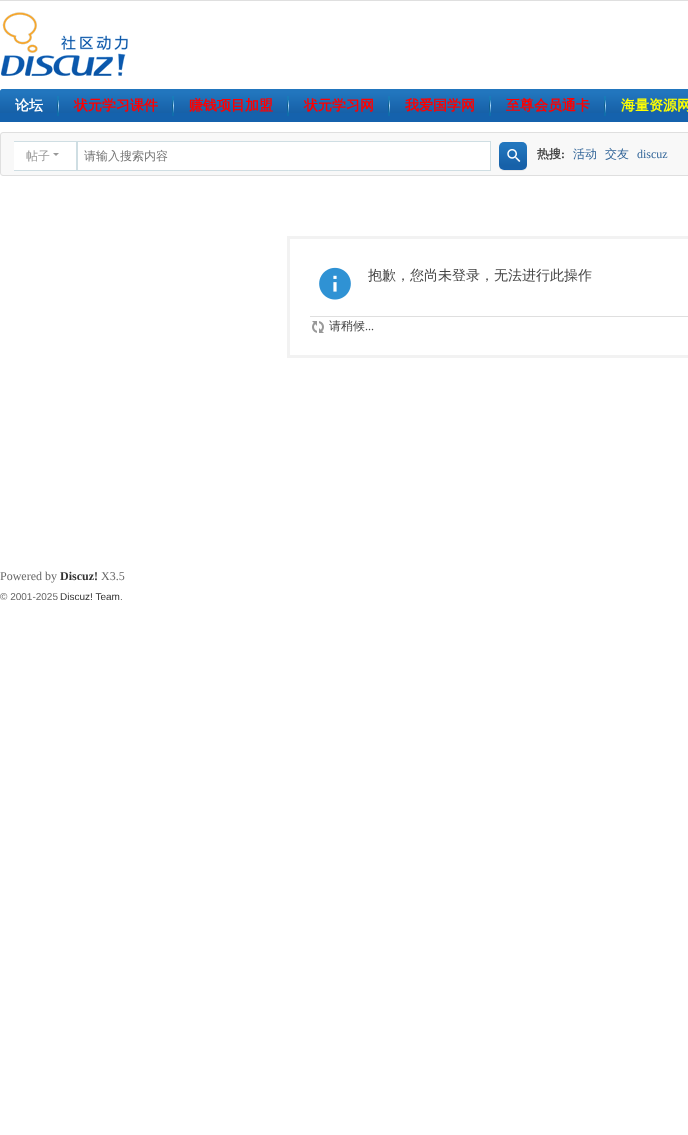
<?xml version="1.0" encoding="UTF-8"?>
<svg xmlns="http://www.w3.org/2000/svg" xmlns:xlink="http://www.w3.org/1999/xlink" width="688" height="1135">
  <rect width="100%" height="100%" fill="#ffffff" />
  <rect width="688" height="1" fill="#dfdfdf" />
  <image x="1" y="12" width="127" height="64" xlink:href="image1.png" />
  <path d="M 3 89 h 685 c 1.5 0 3 1.5 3 3 v 30 h -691 v -30 c 0 -1.5 1.5 -3 3 -3 z" fill="#1562ad" />
  <image x="0" y="89" width="688" height="24" xlink:href="image2.png" />
  <image x="57" y="96" width="2" height="20" xlink:href="image3.png" />
  <image x="172" y="96" width="2" height="20" xlink:href="image3.png" />
  <image x="287" y="96" width="2" height="20" xlink:href="image3.png" />
  <image x="388" y="96" width="2" height="20" xlink:href="image3.png" />
  <image x="489" y="96" width="2" height="20" xlink:href="image3.png" />
  <image x="604" y="96" width="2" height="20" xlink:href="image3.png" />
  <rect x="0.5" y="132.5" width="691" height="43" rx="2.5" fill="#f8f8f8" stroke="#dfdfdf" />
  <rect x="14" y="142" width="62" height="28" fill="#ffffff" />
  <rect x="14" y="141" width="63" height="1" fill="#cfdee3" />
  <rect x="76" y="141" width="1" height="30" fill="#cfdee3" />
  <rect x="14" y="170" width="63" height="1" fill="#cfdee3" />
  <path d="M 53 153 h 6 l -3 3 z" fill="#999999" />
  <rect x="77.5" y="141.5" width="413" height="29" fill="#ffffff" stroke="#cfdee3" />
  <path d="M 499 165 c 0 5.5 3 6 8 6 h 12 c 5 0 8 -0.5 8 -6 c 0 3 -2 5 -5 5 h -18 c -3 0 -5 -2 -5 -5 z" fill="#e5e5e5" />
  <image x="499" y="142" width="28" height="28" xlink:href="image4.png" />
  <image x="507" y="149" width="14" height="13" xlink:href="image5.png" />
  <rect x="288.5" y="237.5" width="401" height="119" fill="none" stroke="#f2f2f2" stroke-width="3" />
  <image x="319" y="267" width="32" height="33" xlink:href="image6.png" />
  <rect x="310" y="316" width="378" height="1" fill="#dfdfdf" />
  <image x="312" y="321" width="12" height="12" xlink:href="image7.png" />
  <text x="15" y="110" style="font-family: WenQuanYi Zen Hei; font-size: 14px; font-weight: bold; fill: #ffffff">论坛</text>
  <text x="74" y="110" style="font-family: WenQuanYi Zen Hei; font-size: 14px; font-weight: bold; fill: #ff0000">状元学习课件</text>
  <text x="189" y="110" style="font-family: WenQuanYi Zen Hei; font-size: 14px; font-weight: bold; fill: #ff0000">赚钱项目加盟</text>
  <text x="304" y="110" style="font-family: WenQuanYi Zen Hei; font-size: 14px; font-weight: bold; fill: #ff0000">状元学习网</text>
  <text x="405" y="110" style="font-family: WenQuanYi Zen Hei; font-size: 14px; font-weight: bold; fill: #ff0000">我爱国学网</text>
  <text x="506" y="110" style="font-family: WenQuanYi Zen Hei; font-size: 14px; font-weight: bold; fill: #ff0000">至尊会员通卡</text>
  <text x="621" y="110" style="font-family: WenQuanYi Zen Hei; font-size: 14px; font-weight: bold; fill: #ffff00">海量资源网</text>
  <text x="26" y="160" style="font-family: WenQuanYi Zen Hei; font-size: 12px; font-weight: 500; fill: #999999">帖子</text>
  <text x="84" y="160" style="font-family: WenQuanYi Zen Hei; font-size: 12px; font-weight: 500; fill: #757575">请输入搜索内容</text>
  <text x="537" y="158" style="font-family: WenQuanYi Zen Hei; font-size: 12px; font-weight: bold; fill: #444444">热搜</text>
  <text x="561" y="158" style="font-family: Liberation Serif; font-size: 12px; font-weight: bold; fill: #444444">:</text>
  <text x="573" y="158" style="font-family: WenQuanYi Zen Hei; font-size: 12px; font-weight: 500; fill: #336699">活动</text>
  <text x="605" y="158" style="font-family: WenQuanYi Zen Hei; font-size: 12px; font-weight: 500; fill: #336699">交友</text>
  <text x="637" y="158" style="font-family: Liberation Serif; font-size: 12px; fill: #336699">discuz</text>
  <text x="368" y="280" style="font-family: WenQuanYi Zen Hei; font-size: 14px; font-weight: 500; fill: #444444">抱歉，您尚未登录，无法进行此操作</text>
  <text x="329" y="330" style="font-family: WenQuanYi Zen Hei; font-size: 12px; font-weight: 500; fill: #444444">请稍候</text>
  <text x="365" y="330" style="font-family: Liberation Serif; font-size: 12px; fill: #444444">...</text>
  <text x="0" y="580" style="font-family: Liberation Serif; font-size: 12px; fill: #666666">Powered by</text>
  <text x="60" y="580" style="font-family: Liberation Serif; font-size: 12px; font-weight: bold; fill: #333333">Discuz!</text>
  <text x="101" y="580" style="font-family: Liberation Serif; font-size: 12px; fill: #666666">X3.5</text>
  <text x="0" y="600" style="font-family: Liberation Sans; font-size: 10px; fill: #666666">© 2001-2025</text>
  <text x="60" y="600" style="font-family: Liberation Sans; font-size: 10px; fill: #333333">Discuz! Team</text>
  <text x="120" y="600" style="font-family: Liberation Sans; font-size: 10px; fill: #666666">.</text>
</svg>
